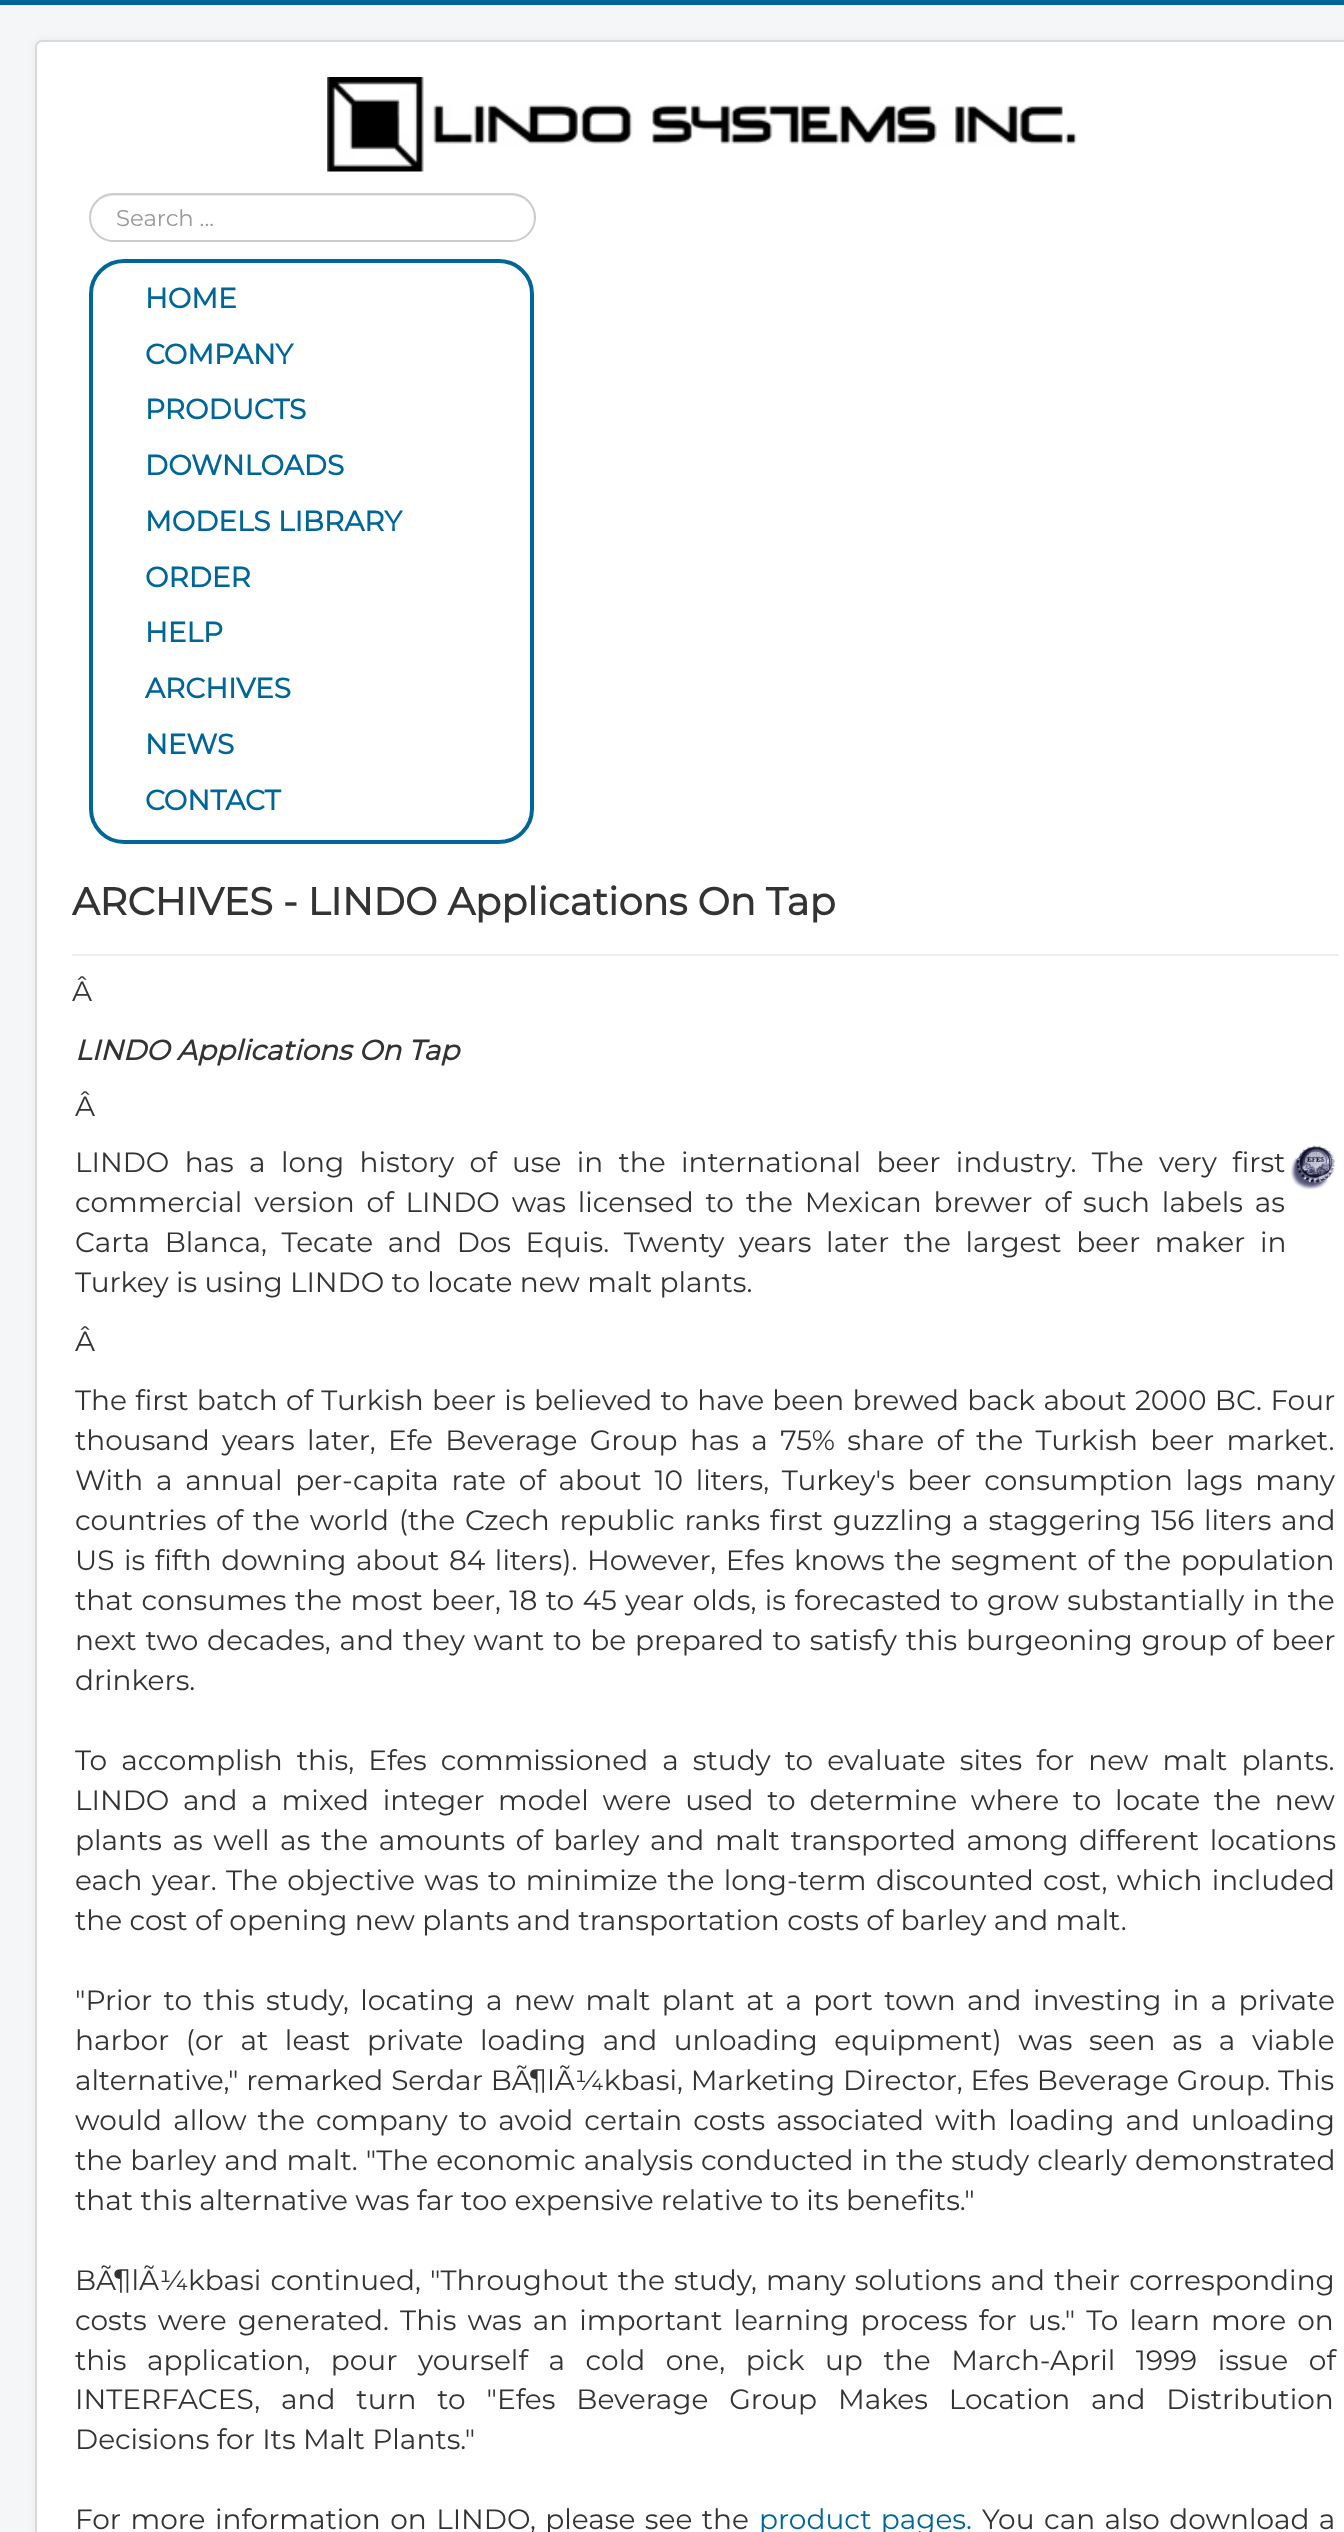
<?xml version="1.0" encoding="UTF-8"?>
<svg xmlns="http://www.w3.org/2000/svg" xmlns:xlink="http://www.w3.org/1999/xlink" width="1344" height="2532">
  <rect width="100%" height="100%" fill="#f4f6f7" />
  <rect width="1344" height="5" fill="#006699" />
  <rect x="35" y="40" width="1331" height="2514" rx="7" fill="#000000" fill-opacity="0.05" filter="blur(5px)" />
  <rect x="35" y="40" width="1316" height="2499" rx="7" fill="#ffffff" />
  <rect x="36" y="41" width="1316" height="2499" rx="6" fill="none" stroke="#000000" stroke-opacity="0.15" stroke-width="2" />
  <image x="327" y="77" width="750" height="95" xlink:href="image1.png" />
  <path d="M 114 196 h 397 c 13 0 22 9 23 22 c 1 -13 -10 -24 -23 -24 h -397 c -13 0 -24 11 -23 24 c 1 -13 10 -22 23 -22 z" fill="#ececec" />
  <rect x="90" y="194" width="445" height="47" rx="23.5" fill="none" stroke="#cccccc" stroke-width="2" />
  <rect x="91" y="261" width="441" height="581" rx="33" fill="none" stroke="#006699" stroke-width="4" />
  <rect x="72" y="954" width="1267" height="2" fill="#eeeeee" />
  <image x="1290" y="1145" width="46" height="45" xlink:href="image2.png" />
  <text x="116" y="226" style="font-family: Montserrat; font-size: 22.75px; font-weight: 100; fill: #999999">Search ...</text>
  <text x="145" y="308" style="font-family: Montserrat; font-size: 28px; font-weight: bold; fill: #006699">HOME</text>
  <text x="145" y="364" style="font-family: Montserrat; font-size: 28px; font-weight: bold; fill: #006699">COMPANY</text>
  <text x="145" y="419" style="font-family: Montserrat; font-size: 28px; font-weight: bold; fill: #006699">PRODUCTS</text>
  <text x="145" y="475" style="font-family: Montserrat; font-size: 28px; font-weight: bold; fill: #006699">DOWNLOADS</text>
  <text x="145" y="531" style="font-family: Montserrat; font-size: 28px; font-weight: bold; fill: #006699">MODELS LIBRARY</text>
  <text x="145" y="587" style="font-family: Montserrat; font-size: 28px; font-weight: bold; fill: #006699">ORDER</text>
  <text x="145" y="642" style="font-family: Montserrat; font-size: 28px; font-weight: bold; fill: #006699">HELP</text>
  <text x="145" y="698" style="font-family: Montserrat; font-size: 28px; font-weight: bold; fill: #006699">ARCHIVES</text>
  <text x="145" y="754" style="font-family: Montserrat; font-size: 28px; font-weight: bold; fill: #006699">NEWS</text>
  <text x="145" y="810" style="font-family: Montserrat; font-size: 28px; font-weight: bold; fill: #006699">CONTACT</text>
  <text x="72" y="915" style="font-family: Montserrat; font-size: 38.5px; font-weight: bold; fill: #333333">ARCHIVES - LINDO Applications On Tap</text>
  <text x="72" y="1001" style="font-family: Montserrat; font-size: 28px; font-weight: 100; fill: #333333">Â</text>
  <text x="75" y="1060" style="font-family: Montserrat; font-size: 28px; font-weight: bold; font-style: italic; fill: #333333">LINDO Applications On Tap</text>
  <text x="75" y="1116" style="font-family: Montserrat; font-size: 28px; font-weight: 100; fill: #333333">Â</text>
  <text x="75" y="1172" word-spacing="8" style="font-family: Montserrat; font-size: 28px; font-weight: 100; fill: #333333">LINDO has a long history of use in the international beer industry. The very first</text>
  <text x="75" y="1212" word-spacing="4.5" style="font-family: Montserrat; font-size: 28px; font-weight: 100; fill: #333333">commercial version of LINDO was licensed to the Mexican brewer of such labels as</text>
  <text x="75" y="1252" word-spacing="7.25" style="font-family: Montserrat; font-size: 28px; font-weight: 100; fill: #333333">Carta Blanca, Tecate and Dos Equis. Twenty years later the largest beer maker in</text>
  <text x="75" y="1292" style="font-family: Montserrat; font-size: 28px; font-weight: 100; fill: #333333">Turkey is using LINDO to locate new malt plants.</text>
  <text x="75" y="1351" style="font-family: Montserrat; font-size: 28px; font-weight: 100; fill: #333333">Â</text>
  <text x="75" y="1410" word-spacing="1" style="font-family: Montserrat; font-size: 28px; font-weight: 100; fill: #333333">The first batch of Turkish beer is believed to have been brewed back about 2000 BC. Four</text>
  <text x="75" y="1450" word-spacing="5" style="font-family: Montserrat; font-size: 28px; font-weight: 100; fill: #333333">thousand years later, Efe Beverage Group has a 75% share of the Turkish beer market.</text>
  <text x="75" y="1490" word-spacing="5.4" style="font-family: Montserrat; font-size: 28px; font-weight: 100; fill: #333333">With a annual per-capita rate of about 10 liters, Turkey's beer consumption lags many</text>
  <text x="75" y="1530" word-spacing="2.4" style="font-family: Montserrat; font-size: 28px; font-weight: 100; fill: #333333">countries of the world (the Czech republic ranks first guzzling a staggering 156 liters and</text>
  <text x="75" y="1570" word-spacing="2.25" style="font-family: Montserrat; font-size: 28px; font-weight: 100; fill: #333333">US is fifth downing about 84 liters). However, Efes knows the segment of the population</text>
  <text x="75" y="1610" word-spacing="1.1" style="font-family: Montserrat; font-size: 28px; font-weight: 100; fill: #333333">that consumes the most beer, 18 to 45 year olds, is forecasted to grow substantially in the</text>
  <text x="75" y="1650" word-spacing="1.4" style="font-family: Montserrat; font-size: 28px; font-weight: 100; fill: #333333">next two decades, and they want to be prepared to satisfy this burgeoning group of beer</text>
  <text x="75" y="1690" style="font-family: Montserrat; font-size: 28px; font-weight: 100; fill: #333333">drinkers.</text>
  <text x="75" y="1770" word-spacing="6.75" style="font-family: Montserrat; font-size: 28px; font-weight: 100; fill: #333333">To accomplish this, Efes commissioned a study to evaluate sites for new malt plants.</text>
  <text x="75" y="1810" word-spacing="6.4" style="font-family: Montserrat; font-size: 28px; font-weight: 100; fill: #333333">LINDO and a mixed integer model were used to determine where to locate the new</text>
  <text x="75" y="1850" word-spacing="3.25" style="font-family: Montserrat; font-size: 28px; font-weight: 100; fill: #333333">plants as well as the amounts of barley and malt transported among different locations</text>
  <text x="75" y="1890" word-spacing="2.1" style="font-family: Montserrat; font-size: 28px; font-weight: 100; fill: #333333">each year. The objective was to minimize the long-term discounted cost, which included</text>
  <text x="75" y="1930" style="font-family: Montserrat; font-size: 28px; font-weight: 100; fill: #333333">the cost of opening new plants and transportation costs of barley and malt.</text>
  <text x="75" y="2010" word-spacing="4" style="font-family: Montserrat; font-size: 28px; font-weight: 100; fill: #333333">"Prior to this study, locating a new malt plant at a port town and investing in a private</text>
  <text x="75" y="2050" word-spacing="9.25" style="font-family: Montserrat; font-size: 28px; font-weight: 100; fill: #333333">harbor (or at least private loading and unloading equipment) was seen as a viable</text>
  <text x="75" y="2090" word-spacing="0.5" style="font-family: Montserrat; font-size: 28px; font-weight: 100; fill: #333333">alternative," remarked Serdar BÃ¶lÃ¼kbasi, Marketing Director, Efes Beverage Group. This</text>
  <text x="75" y="2130" word-spacing="3.75" style="font-family: Montserrat; font-size: 28px; font-weight: 100; fill: #333333">would allow the company to avoid certain costs associated with loading and unloading</text>
  <text x="75" y="2170" word-spacing="0.7" style="font-family: Montserrat; font-size: 28px; font-weight: 100; fill: #333333">the barley and malt. "The economic analysis conducted in the study clearly demonstrated</text>
  <text x="75" y="2210" style="font-family: Montserrat; font-size: 28px; font-weight: 100; fill: #333333">that this alternative was far too expensive relative to its benefits."</text>
  <text x="75" y="2290" word-spacing="1.75" style="font-family: Montserrat; font-size: 28px; font-weight: 100; fill: #333333">BÃ¶lÃ¼kbasi continued, "Throughout the study, many solutions and their corresponding</text>
  <text x="75" y="2330" word-spacing="3.75" style="font-family: Montserrat; font-size: 28px; font-weight: 100; fill: #333333">costs were generated. This was an important learning process for us." To learn more on</text>
  <text x="75" y="2370" word-spacing="13.25" style="font-family: Montserrat; font-size: 28px; font-weight: 100; fill: #333333">this application, pour yourself a cold one, pick up the March-April 1999 issue of</text>
  <text x="75" y="2409" word-spacing="13.5" style="font-family: Montserrat; font-size: 28px; font-weight: 100; fill: #333333">INTERFACES, and turn to "Efes Beverage Group Makes Location and Distribution</text>
  <text x="75" y="2449" style="font-family: Montserrat; font-size: 28px; font-weight: 100; fill: #333333">Decisions for Its Malt Plants."</text>
  <text x="75" y="2529" word-spacing="2.1" style="font-family: Montserrat; font-size: 28px; font-weight: 100; fill: #333333">For more information on LINDO, please see the</text>
  <text x="759" y="2529" word-spacing="2" style="font-family: Montserrat; font-size: 28px; font-weight: 100; fill: #006699">product pages.</text>
  <text x="982" y="2529" word-spacing="2.1" style="font-family: Montserrat; font-size: 28px; font-weight: 100; fill: #333333">You can also download a</text>
</svg>
